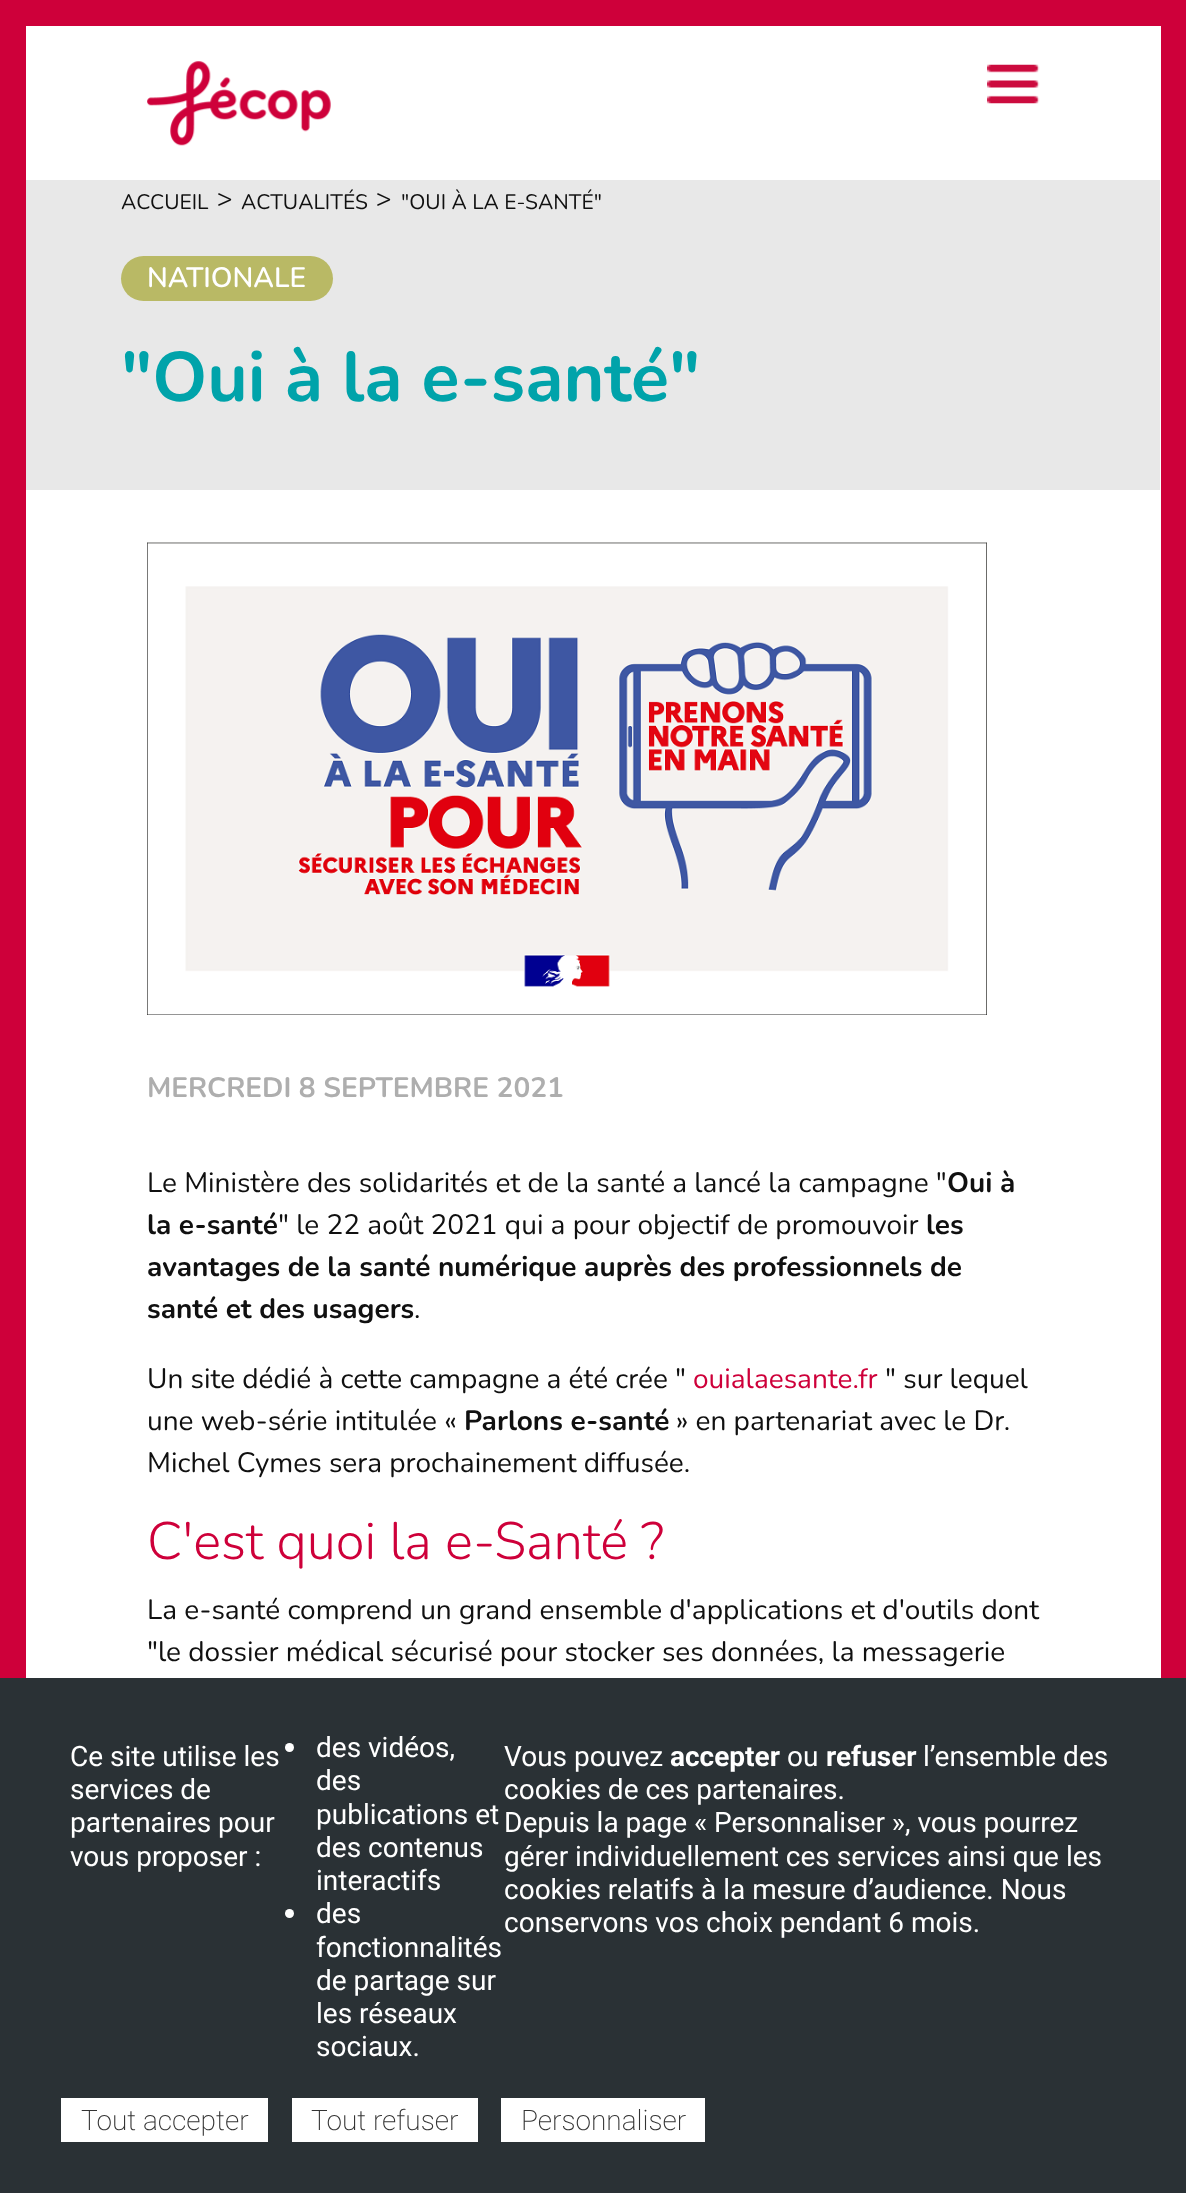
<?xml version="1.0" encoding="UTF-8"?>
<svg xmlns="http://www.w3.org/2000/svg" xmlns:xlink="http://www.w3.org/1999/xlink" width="1186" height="2193">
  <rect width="100%" height="100%" fill="#ffffff" />
  <rect x="13" y="13" width="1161" height="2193" fill="none" stroke="#ce003a" stroke-width="26" />
  <image x="147" y="61" width="184" height="85" xlink:href="image1.png" />
  <image x="987" y="64" width="53" height="40" xlink:href="image2.png" />
  <rect x="26" y="180" width="1134" height="310" fill="#e8e8e8" />
  <rect x="121" y="256" width="212" height="45" rx="22.5" fill="#b9b965" />
  <image x="147" y="542" width="840" height="473" xlink:href="image3.png" />
  <rect y="1678" width="1186" height="515" fill="#2a3135" />
  <circle cx="289.5" cy="1747.5" r="4.5" fill="#ffffff" />
  <circle cx="289.5" cy="1913.5" r="4.5" fill="#ffffff" />
  <rect x="61" y="2098" width="207" height="44" fill="#ffffff" />
  <rect x="292" y="2098" width="186" height="44" fill="#ffffff" />
  <rect x="501" y="2098" width="204" height="44" fill="#ffffff" />
  <text x="121" y="209" style="font-family: Nunito; font-size: 21px; fill: #101010">ACCUEIL</text>
  <text x="217" y="207" style="font-family: Nunito; font-size: 26px; fill: #101010">&gt;</text>
  <text x="241" y="209" style="font-family: Nunito; font-size: 21px; fill: #101010">ACTUALITÉS</text>
  <text x="376" y="207" style="font-family: Nunito; font-size: 26px; fill: #101010">&gt;</text>
  <text x="401" y="209" style="font-family: Nunito; font-size: 21px; fill: #101010">"OUI À LA E-SANTÉ"</text>
  <text x="147" y="287" style="font-family: Nunito; font-size: 28px; font-weight: 600; fill: #ffffff">NATIONALE</text>
  <text x="121" y="401" style="font-family: Nunito; font-size: 70px; font-weight: bold; fill: #00a3aa">"Oui à la e-santé"</text>
  <text x="147" y="1097" style="font-family: Nunito; font-size: 28px; font-weight: bold; fill: #aeaeae">MERCREDI 8 SEPTEMBRE 2021</text>
  <text x="147" y="1192" style="font-family: Nunito; font-size: 28px; fill: #101010">Le Ministère des solidarités et de la santé a lancé la campagne "</text>
  <text x="947" y="1192" style="font-family: Nunito; font-size: 28px; font-weight: bold; fill: #101010">Oui à</text>
  <text x="147" y="1234" style="font-family: Nunito; font-size: 28px; font-weight: bold; fill: #101010">la e-santé</text>
  <text x="278" y="1234" style="font-family: Nunito; font-size: 28px; fill: #101010">" le 22 août 2021 qui a pour objectif de promouvoir</text>
  <text x="926" y="1234" style="font-family: Nunito; font-size: 28px; font-weight: bold; fill: #101010">les</text>
  <text x="147" y="1276" style="font-family: Nunito; font-size: 28px; font-weight: bold; fill: #101010">avantages de la santé numérique auprès des professionnels de</text>
  <text x="147" y="1318" style="font-family: Nunito; font-size: 28px; font-weight: bold; fill: #101010">santé et des usagers</text>
  <text x="414" y="1318" style="font-family: Nunito; font-size: 28px; fill: #101010">.</text>
  <text x="147" y="1388" style="font-family: Nunito; font-size: 28px; fill: #101010">Un site dédié à cette campagne a été crée "</text>
  <text x="693" y="1388" style="font-family: Nunito; font-size: 28px; fill: #ce003a">ouialaesante.fr</text>
  <text x="885" y="1388" style="font-family: Nunito; font-size: 28px; fill: #101010">" sur lequel</text>
  <text x="147" y="1430" style="font-family: Nunito; font-size: 28px; fill: #101010">une web-série intitulée «</text>
  <text x="464" y="1430" style="font-family: Nunito; font-size: 28px; font-weight: bold; fill: #101010">Parlons e-santé</text>
  <text x="676" y="1430" style="font-family: Nunito; font-size: 28px; fill: #101010">» en partenariat avec le Dr.</text>
  <text x="147" y="1472" style="font-family: Nunito; font-size: 28px; fill: #101010">Michel Cymes sera prochainement diffusée.</text>
  <text x="147" y="1559" style="font-family: Nunito; font-size: 52.5px; font-weight: 300; fill: #ce003a">C'est quoi la e-Santé ?</text>
  <text x="147" y="1619" style="font-family: Nunito; font-size: 28px; fill: #101010">La e-santé comprend un grand ensemble d'applications et d'outils dont</text>
  <text x="147" y="1661" style="font-family: Nunito; font-size: 28px; fill: #101010">"le dossier médical sécurisé pour stocker ses données, la messagerie</text>
  <text x="70" y="1766" style="font-family: Roboto; font-size: 28px; fill: #ffffff">Ce site utilise les</text>
  <text x="70" y="1799" style="font-family: Roboto; font-size: 28px; fill: #ffffff">services de</text>
  <text x="70" y="1832" style="font-family: Roboto; font-size: 28px; fill: #ffffff">partenaires pour</text>
  <text x="70" y="1866" style="font-family: Roboto; font-size: 28px; fill: #ffffff">vous proposer :</text>
  <text x="316" y="1757" style="font-family: Roboto; font-size: 28px; fill: #ffffff">des vidéos,</text>
  <text x="316" y="1790" style="font-family: Roboto; font-size: 28px; fill: #ffffff">des</text>
  <text x="316" y="1824" style="font-family: Roboto; font-size: 28px; fill: #ffffff">publications et</text>
  <text x="316" y="1857" style="font-family: Roboto; font-size: 28px; fill: #ffffff">des contenus</text>
  <text x="316" y="1890" style="font-family: Roboto; font-size: 28px; fill: #ffffff">interactifs</text>
  <text x="316" y="1923" style="font-family: Roboto; font-size: 28px; fill: #ffffff">des</text>
  <text x="316" y="1957" style="font-family: Roboto; font-size: 28px; fill: #ffffff">fonctionnalités</text>
  <text x="316" y="1990" style="font-family: Roboto; font-size: 28px; fill: #ffffff">de partage sur</text>
  <text x="316" y="2023" style="font-family: Roboto; font-size: 28px; fill: #ffffff">les réseaux</text>
  <text x="316" y="2056" style="font-family: Roboto; font-size: 28px; fill: #ffffff">sociaux.</text>
  <text x="504" y="1766" style="font-family: Roboto; font-size: 28px; fill: #ffffff">Vous pouvez</text>
  <text x="670" y="1766" style="font-family: Roboto; font-size: 28px; font-weight: bold; fill: #ffffff">accepter</text>
  <text x="787" y="1766" style="font-family: Roboto; font-size: 28px; fill: #ffffff">ou</text>
  <text x="826" y="1766" style="font-family: Roboto; font-size: 28px; font-weight: bold; fill: #ffffff">refuser</text>
  <text x="923" y="1766" style="font-family: Roboto; font-size: 28px; fill: #ffffff">l’ensemble des</text>
  <text x="504" y="1799" style="font-family: Roboto; font-size: 28px; fill: #ffffff">cookies de ces partenaires.</text>
  <text x="504" y="1832" style="font-family: Roboto; font-size: 28px; fill: #ffffff">Depuis la page « Personnaliser », vous pourrez</text>
  <text x="504" y="1866" style="font-family: Roboto; font-size: 28px; fill: #ffffff">gérer individuellement ces services ainsi que les</text>
  <text x="504" y="1899" style="font-family: Roboto; font-size: 28px; fill: #ffffff">cookies relatifs à la mesure d’audience. Nous</text>
  <text x="504" y="1932" style="font-family: Roboto; font-size: 28px; fill: #ffffff">conservons vos choix pendant 6 mois.</text>
  <text x="81" y="2130" style="font-family: Roboto; font-size: 28px; font-weight: 200; fill: #333333">Tout accepter</text>
  <text x="311" y="2130" style="font-family: Roboto; font-size: 28px; font-weight: 200; fill: #333333">Tout refuser</text>
  <text x="521" y="2130" style="font-family: Roboto; font-size: 28px; font-weight: 200; fill: #333333">Personnaliser</text>
</svg>
